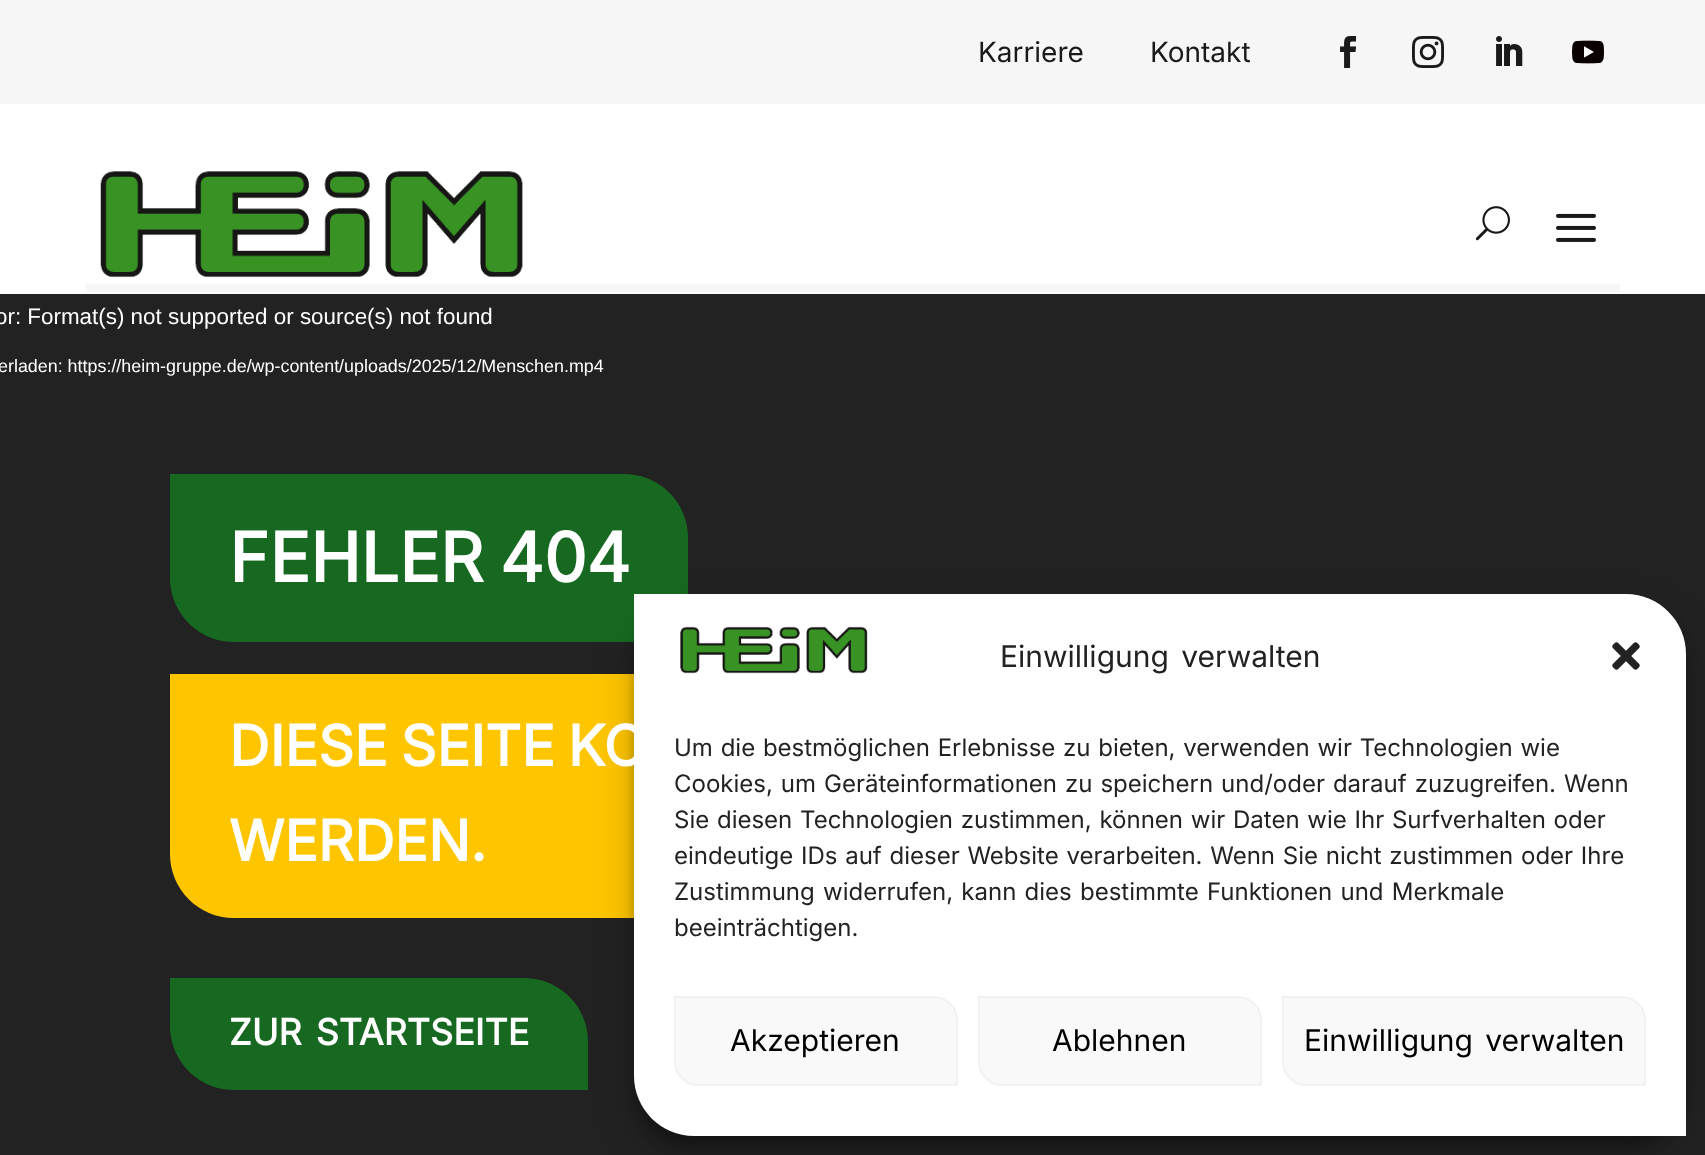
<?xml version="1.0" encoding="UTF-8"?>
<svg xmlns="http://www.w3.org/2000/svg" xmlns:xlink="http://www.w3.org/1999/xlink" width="1705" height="1155">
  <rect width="100%" height="100%" fill="#ffffff" />
  <rect width="1705" height="104" fill="#f6f6f6" />
  <image x="1340" y="36" width="17" height="32" xlink:href="image1.png" />
  <image x="1412" y="36" width="32" height="32" xlink:href="image2.png" />
  <image x="1496" y="36" width="27" height="30" xlink:href="image3.png" />
  <image x="1572" y="40" width="32" height="24" xlink:href="image4.png" />
  <rect x="86" y="284" width="1534" height="8" fill="#f6f6f6" />
  <image x="100" y="171" width="423" height="107" xlink:href="image5.png" />
  <image x="1475" y="206" width="35" height="35" xlink:href="image6.png" />
  <image x="1556" y="213" width="40" height="29" xlink:href="image7.png" />
  <rect y="294" width="1705" height="861" fill="#222222" />
  <path d="M 170 474 h 454 c 35.5 0 64 28.5 64 64 v 104 h -454 c -35.5 0 -64 -28.5 -64 -64 z" fill="#176921" />
  <path d="M 170 674 h 1302 c 35.5 0 64 28.5 64 64 v 180 h -1302 c -35.5 0 -64 -28.5 -64 -64 z" fill="#ffc600" />
  <path d="M 170 978 h 354 c 35.5 0 64 28.5 64 64 v 48 h -354 c -35.5 0 -64 -28.5 -64 -64 z" fill="#176921" />
  <rect x="634" y="606" width="1052" height="542" rx="60" fill="#000000" fill-opacity="0.23" filter="blur(6px)" />
  <rect x="634" y="614" width="1052" height="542" rx="60" fill="#000000" fill-opacity="0.19" filter="blur(20px)" />
  <path d="M 634 594 h 992 c 33 0 60 27 60 60 v 482 h -992 c -33 0 -60 -27 -60 -60 z" fill="#ffffff" />
  <image x="680" y="626" width="188" height="48" xlink:href="image8.png" />
  <image x="1612" y="642" width="28" height="28" xlink:href="image9.png" />
  <path d="M 675 997 h 259 c 12.5 0 23 10.5 23 23 v 65 h -259 c -12.5 0 -23 -10.5 -23 -23 z" fill="#f9f9f9" stroke="#f2f2f2" stroke-width="2" />
  <path d="M 979 997 h 259 c 12.5 0 23 10.5 23 23 v 65 h -259 c -12.5 0 -23 -10.5 -23 -23 z" fill="#f9f9f9" stroke="#f2f2f2" stroke-width="2" />
  <path d="M 1283 997 h 339 c 12.5 0 23 10.5 23 23 v 65 h -339 c -12.5 0 -23 -10.5 -23 -23 z" fill="#f9f9f9" stroke="#f2f2f2" stroke-width="2" />
  <text x="978" y="62" style="font-family: Inter; font-size: 28px; fill: #1a1a1a">Karriere</text>
  <text x="1150" y="62" style="font-family: Inter; font-size: 28px; fill: #1a1a1a">Kontakt</text>
  <text x="-5" y="324" style="font-family: Liberation Sans; font-size: 22.4px; fill: #ffffff">or: Format(s) not supported or source(s) not found</text>
  <text x="-2" y="372" style="font-family: Liberation Sans; font-size: 17.9px; fill: #ffffff">erladen: https://heim-gruppe.de/wp-content/uploads/2025/12/Menschen.mp4</text>
  <text x="229" y="582" word-spacing="-3" style="font-family: Inter; font-size: 68px; font-weight: bold; fill: #ffffff">FEHLER 404</text>
  <text x="229" y="766" word-spacing="-3" style="font-family: Inter; font-size: 56px; font-weight: bold; fill: #ffffff">DIESE SEITE KO</text>
  <text x="229" y="861" style="font-family: Inter; font-size: 56px; font-weight: bold; fill: #ffffff">WERDEN.</text>
  <text x="229" y="1045" word-spacing="4" style="font-family: Inter; font-size: 36px; font-weight: bold; fill: #ffffff">ZUR STARTSEITE</text>
  <text x="1000" y="667" word-spacing="4" style="font-family: Inter; font-size: 30px; fill: #222222">Einwilligung verwalten</text>
  <text x="674" y="756" word-spacing="1" style="font-family: Inter; font-size: 24px; fill: #222222">Um die bestmöglichen Erlebnisse zu bieten, verwenden wir Technologien wie</text>
  <text x="674" y="792" word-spacing="1.25" style="font-family: Inter; font-size: 24px; fill: #222222">Cookies, um Geräteinformationen zu speichern und/oder darauf zuzugreifen. Wenn</text>
  <text x="674" y="828" word-spacing="1" style="font-family: Inter; font-size: 24px; fill: #222222">Sie diesen Technologien zustimmen, können wir Daten wie Ihr Surfverhalten oder</text>
  <text x="674" y="864" word-spacing="1" style="font-family: Inter; font-size: 24px; fill: #222222">eindeutige IDs auf dieser Website verarbeiten. Wenn Sie nicht zustimmen oder Ihre</text>
  <text x="674" y="900" word-spacing="1.5" style="font-family: Inter; font-size: 24px; fill: #222222">Zustimmung widerrufen, kann dies bestimmte Funktionen und Merkmale</text>
  <text x="674" y="936" style="font-family: Inter; font-size: 24px; fill: #222222">beeinträchtigen.</text>
  <text x="730" y="1051" style="font-family: Inter; font-size: 30px; fill: #000000">Akzeptieren</text>
  <text x="1052" y="1051" style="font-family: Inter; font-size: 30px; fill: #000000">Ablehnen</text>
  <text x="1304" y="1051" word-spacing="4" style="font-family: Inter; font-size: 30px; fill: #000000">Einwilligung verwalten</text>
</svg>
